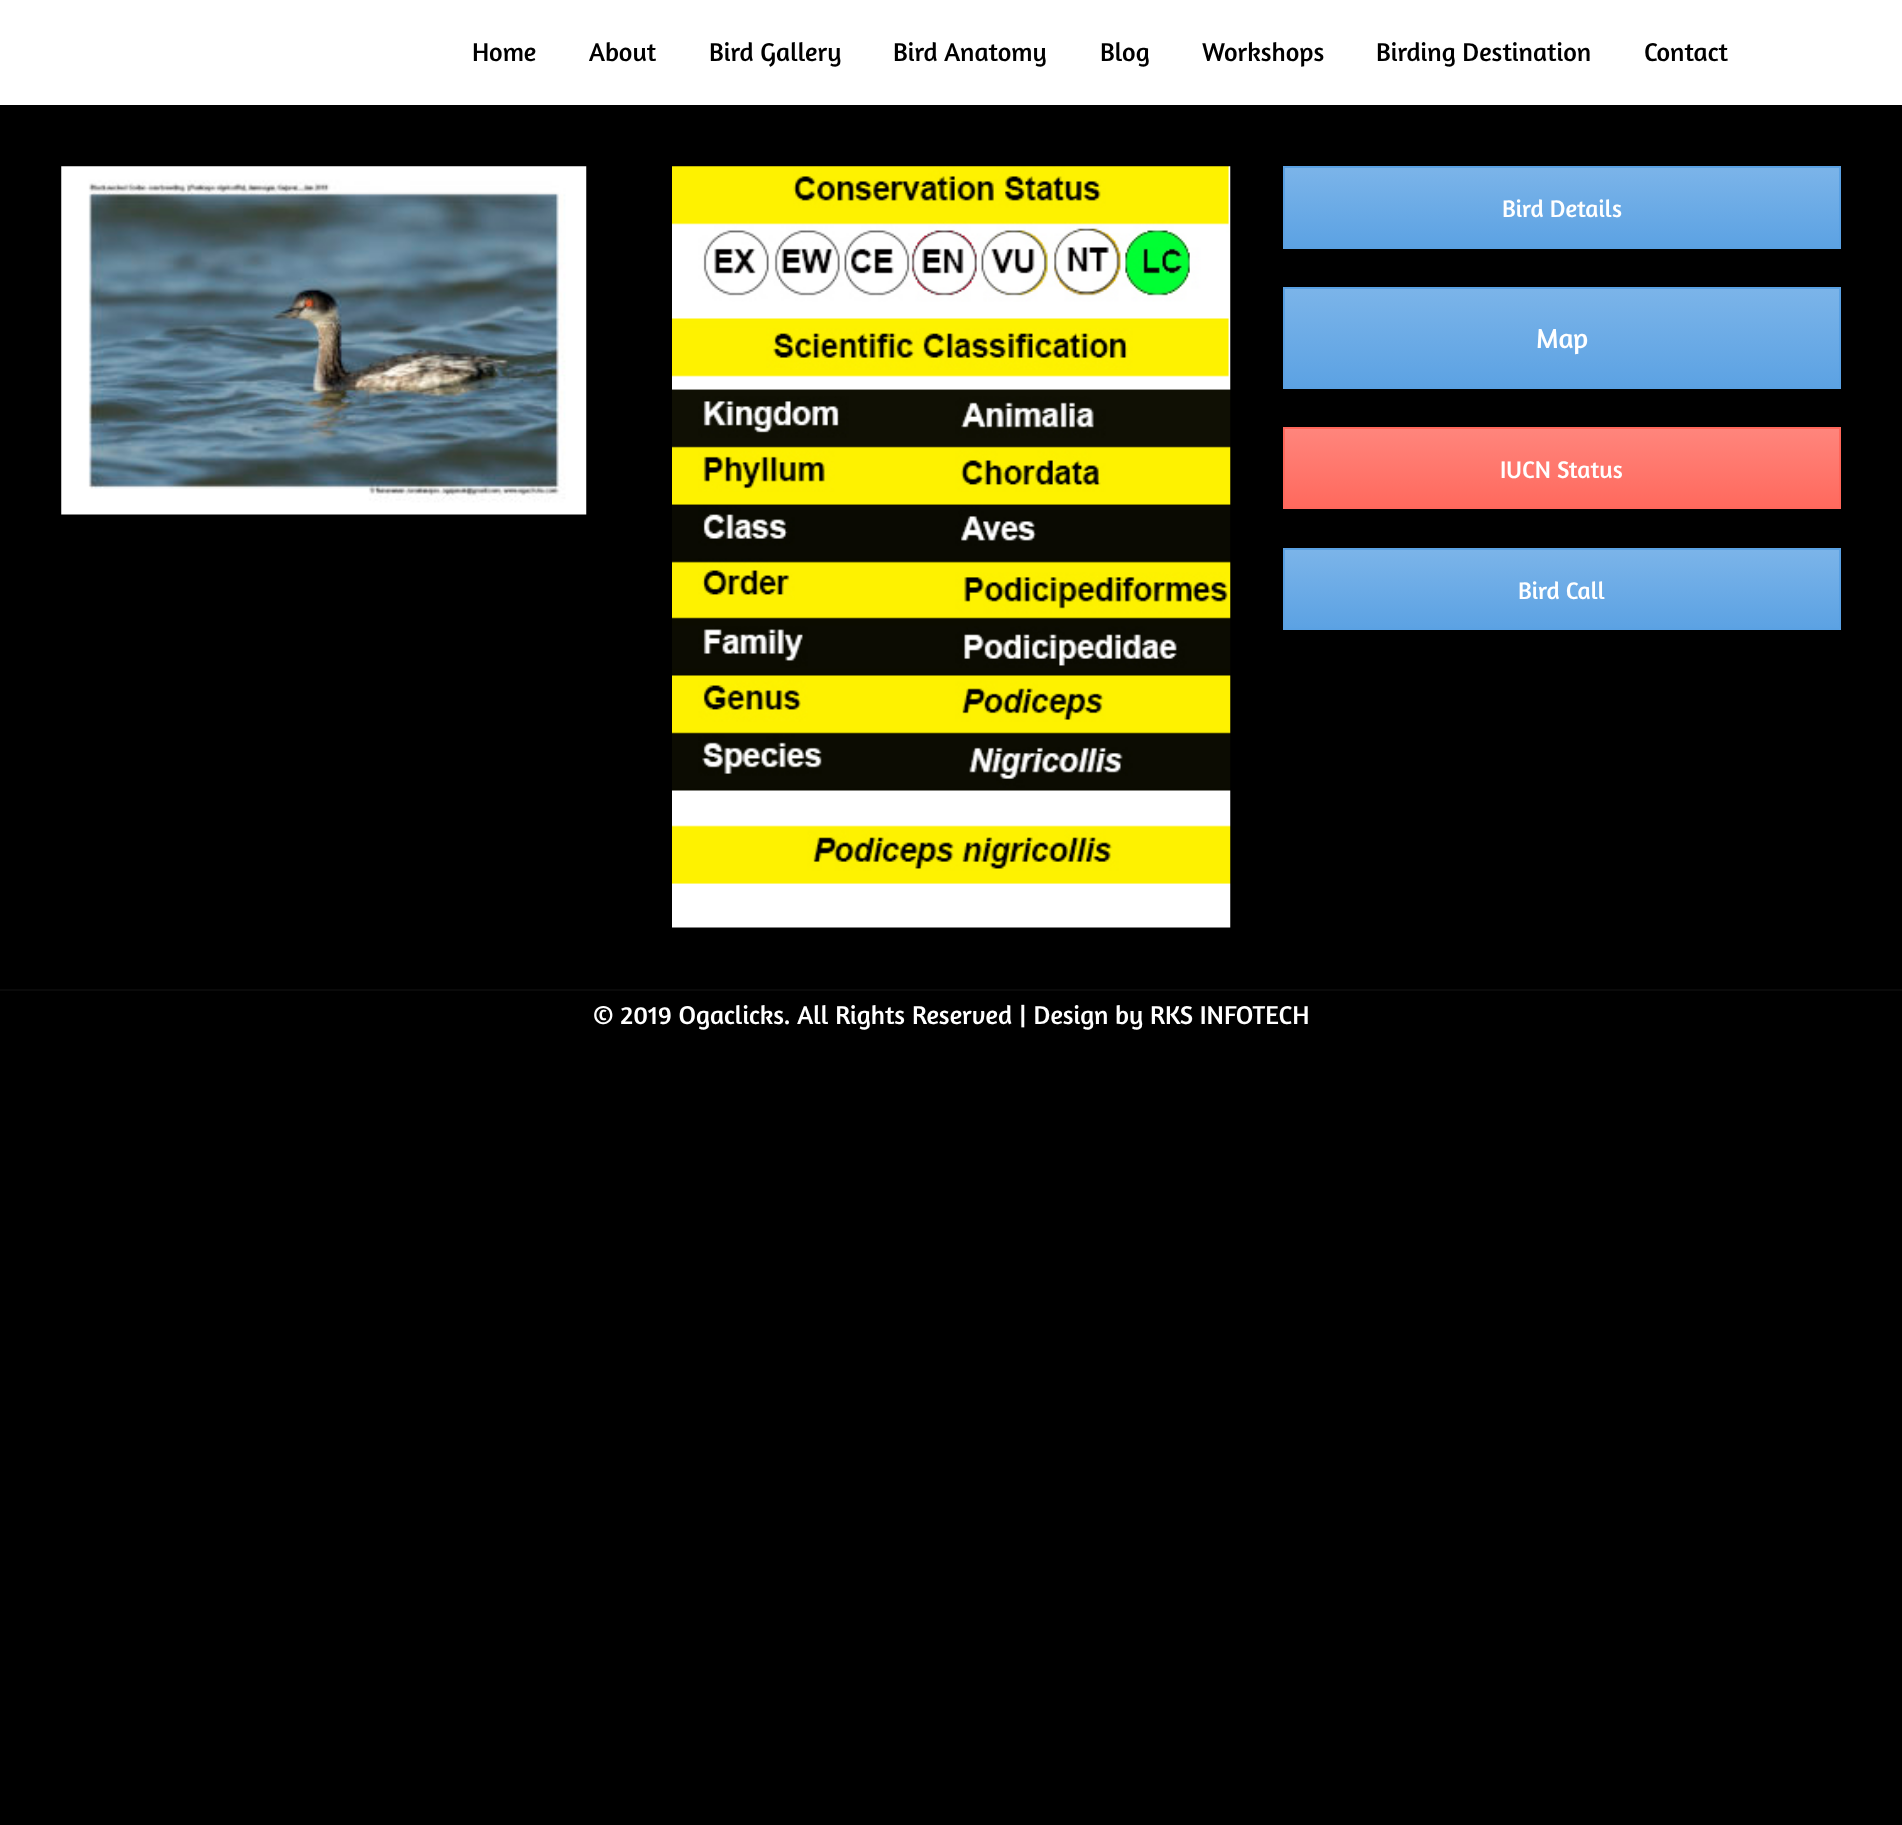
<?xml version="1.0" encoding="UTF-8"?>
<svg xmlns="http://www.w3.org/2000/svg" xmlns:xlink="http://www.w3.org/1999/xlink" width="1902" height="1825">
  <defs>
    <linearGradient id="g1" gradientUnits="userSpaceOnUse" x1="1562" y1="168" x2="1562" y2="247"><stop offset="0" stop-color="#7bb4e9" /><stop offset="1" stop-color="#5ca2e3" /></linearGradient>
    <linearGradient id="g2" gradientUnits="userSpaceOnUse" x1="1562" y1="289" x2="1562" y2="387"><stop offset="0" stop-color="#7bb4e9" /><stop offset="1" stop-color="#5ca2e3" /></linearGradient>
    <linearGradient id="g3" gradientUnits="userSpaceOnUse" x1="1562" y1="429" x2="1562" y2="508"><stop offset="0" stop-color="#ff857c" /><stop offset="1" stop-color="#ff695d" /></linearGradient>
    <linearGradient id="g4" gradientUnits="userSpaceOnUse" x1="1562" y1="550" x2="1562" y2="628"><stop offset="0" stop-color="#7bb4e9" /><stop offset="1" stop-color="#5ca2e3" /></linearGradient>
  </defs>
  <rect width="100%" height="100%" fill="#000000" />
  <rect width="1902" height="105" fill="#ffffff" />
  <image x="61" y="166" width="526" height="349" xlink:href="image1.png" />
  <image x="672" y="166" width="559" height="762" xlink:href="image2.png" />
  <rect x="1285" y="168" width="554" height="79" fill="url(#g1)" />
  <rect x="1284" y="167" width="556" height="81" fill="none" stroke="#5aa1e3" stroke-width="2" />
  <rect x="1285" y="289" width="554" height="98" fill="url(#g2)" />
  <rect x="1284" y="288" width="556" height="100" fill="none" stroke="#5aa1e3" stroke-width="2" />
  <rect x="1285" y="429" width="554" height="78" fill="url(#g3)" />
  <rect x="1284" y="428" width="556" height="80" fill="none" stroke="#ff675b" stroke-width="2" />
  <rect x="1285" y="550" width="554" height="78" fill="url(#g4)" />
  <rect x="1284" y="549" width="556" height="80" fill="none" stroke="#5aa1e3" stroke-width="2" />
  <rect y="989" width="1902" height="2" fill="#0a0a0a" />
  <text x="472" y="61" style="font-family: Amaranth; font-size: 26.25px; fill: #000000">Home</text>
  <text x="589" y="61" style="font-family: Amaranth; font-size: 26.25px; fill: #000000">About</text>
  <text x="709" y="61" style="font-family: Amaranth; font-size: 26.25px; fill: #000000">Bird Gallery</text>
  <text x="893" y="61" style="font-family: Amaranth; font-size: 26.25px; fill: #000000">Bird Anatomy</text>
  <text x="1100" y="61" style="font-family: Amaranth; font-size: 26.25px; fill: #000000">Blog</text>
  <text x="1202" y="61" style="font-family: Amaranth; font-size: 26.25px; fill: #000000">Workshops</text>
  <text x="1376" y="61" style="font-family: Amaranth; font-size: 26.25px; fill: #000000">Birding Destination</text>
  <text x="1644" y="61" style="font-family: Amaranth; font-size: 26.25px; fill: #000000">Contact</text>
  <text x="1502" y="217" style="font-family: Amaranth; font-size: 24.5px; fill: #ffffff">Bird Details</text>
  <text x="1536" y="348" style="font-family: Amaranth; font-size: 28px; fill: #ffffff">Map</text>
  <text x="1500" y="478" style="font-family: Amaranth; font-size: 24.5px; fill: #ffffff">IUCN Status</text>
  <text x="1518" y="599" style="font-family: Amaranth; font-size: 24.5px; fill: #ffffff">Bird Call</text>
  <text x="593" y="1024" style="font-family: Amaranth; font-size: 26.25px; fill: #ffffff">© 2019 Ogaclicks. All Rights Reserved | Design by RKS INFOTECH</text>
</svg>
